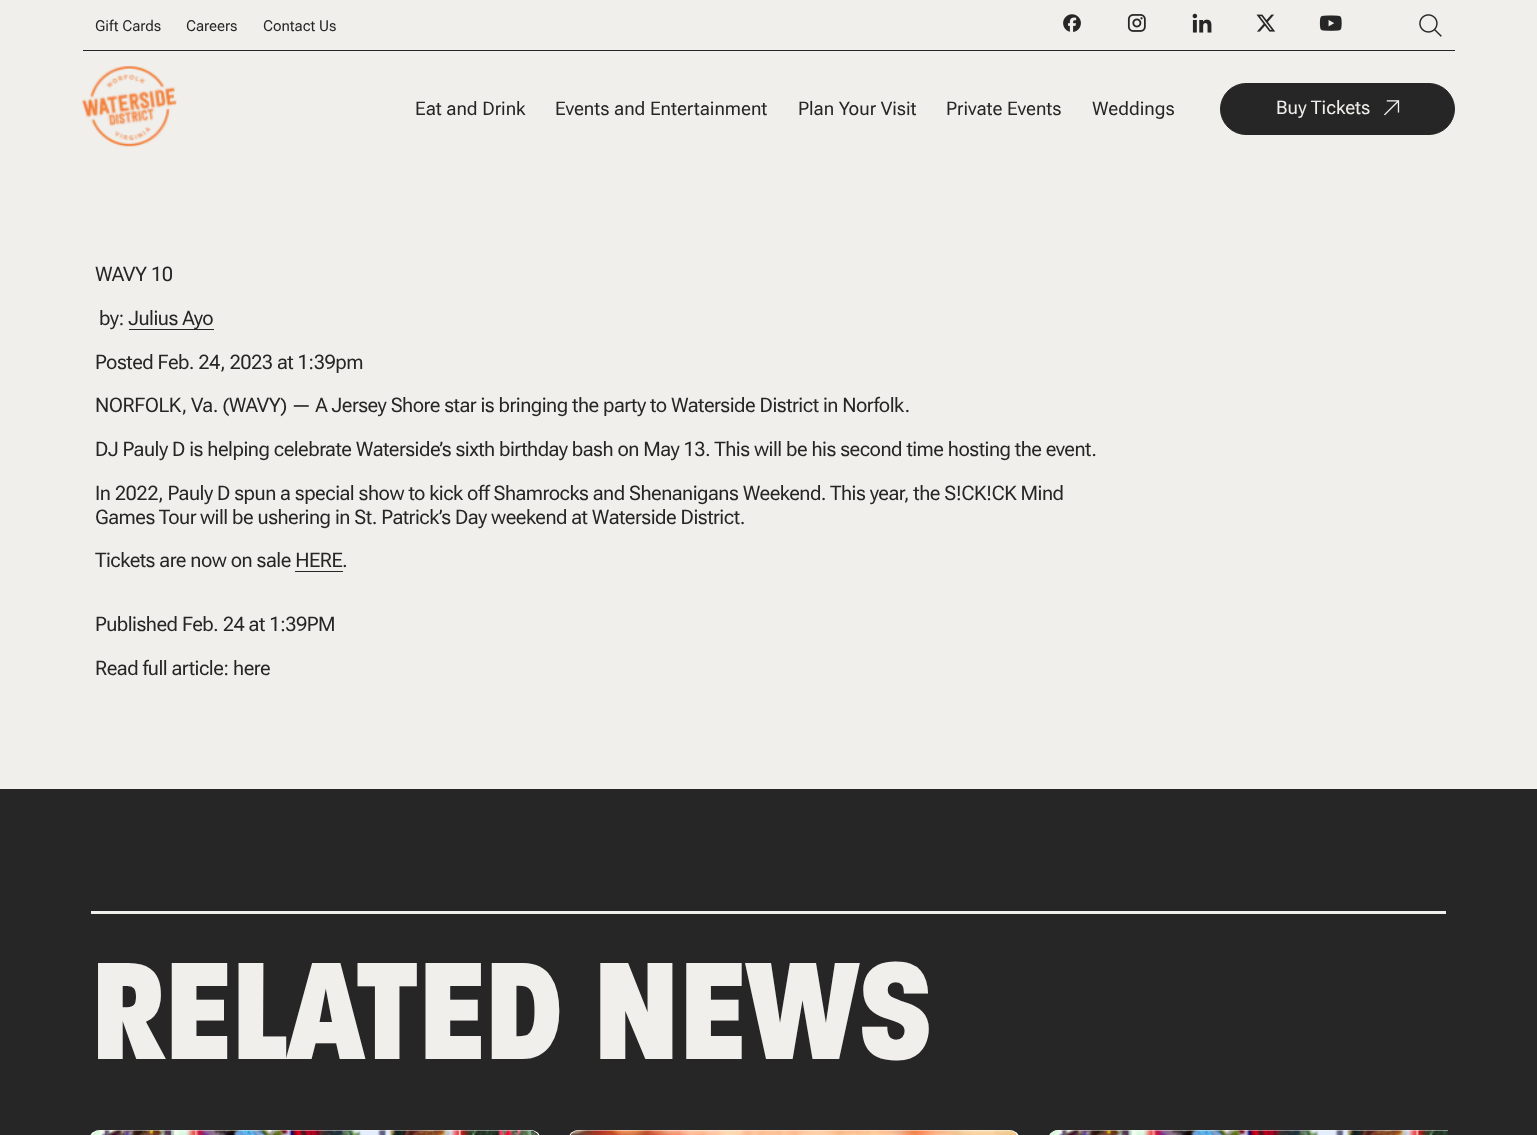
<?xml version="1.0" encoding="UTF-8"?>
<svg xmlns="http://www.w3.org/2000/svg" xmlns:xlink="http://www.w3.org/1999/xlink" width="1537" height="1135">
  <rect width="100%" height="100%" fill="#f1efeb" />
  <image x="1063" y="14" width="18" height="18" xlink:href="image1.png" />
  <image x="1127" y="14" width="19" height="18" xlink:href="image2.png" />
  <image x="1192" y="13" width="20" height="20" xlink:href="image3.png" />
  <image x="1256" y="14" width="20" height="18" xlink:href="image4.png" />
  <image x="1319" y="15" width="23" height="16" xlink:href="image5.png" />
  <image x="1419" y="14" width="23" height="23" xlink:href="image6.png" />
  <rect x="83" y="50" width="1372" height="1" fill="#262626" />
  <image x="82" y="66" width="95" height="81" xlink:href="image7.png" />
  <rect x="1220.5" y="83.5" width="234" height="51" rx="25.5" fill="#262626" stroke="#262626" />
  <image x="1384" y="100" width="16" height="16" xlink:href="image8.png" />
  <rect x="129" y="329" width="85" height="1" fill="#262626" />
  <rect x="295" y="571" width="48" height="1" fill="#262626" />
  <rect y="789" width="1537" height="346" fill="#262626" />
  <rect x="91" y="911" width="1355" height="3" fill="#f1efeb" />
  <rect x="90" y="1130" width="450" height="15" rx="10" fill="#ffffff" />
  <image x="92" y="1130" width="446" height="5" xlink:href="image9.png" />
  <rect x="569" y="1130" width="450" height="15" rx="10" fill="#ffffff" />
  <image x="571" y="1130" width="446" height="5" xlink:href="image10.png" />
  <path d="M 1058 1130 h 390 v 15 h -390 c -5.5 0 -10 -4.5 -10 -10 v 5 c 0 -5.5 4.5 -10 10 -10 z" fill="#ffffff" />
  <image x="1049" y="1130" width="399" height="5" xlink:href="image11.png" />
  <text x="95" y="31" style="font-family: Roboto Flex; font-size: 15px; fill: #262626">Gift Cards</text>
  <text x="186" y="31" style="font-family: Roboto Flex; font-size: 15px; fill: #262626">Careers</text>
  <text x="263" y="31" style="font-family: Roboto Flex; font-size: 15px; fill: #262626">Contact Us</text>
  <text x="415" y="115" style="font-family: Roboto Flex; font-size: 18.75px; fill: #262626">Eat and Drink</text>
  <text x="555" y="115" style="font-family: Roboto Flex; font-size: 18.75px; fill: #262626">Events and Entertainment</text>
  <text x="798" y="115" style="font-family: Roboto Flex; font-size: 18.75px; fill: #262626">Plan Your Visit</text>
  <text x="946" y="115" style="font-family: Roboto Flex; font-size: 18.75px; fill: #262626">Private Events</text>
  <text x="1092" y="115" style="font-family: Roboto Flex; font-size: 18.75px; fill: #262626">Weddings</text>
  <text x="1276" y="114" style="font-family: Roboto Flex; font-size: 18.75px; fill: #f1efeb">Buy Tickets</text>
  <text x="95" y="281" style="font-family: Roboto Flex; font-size: 20px; letter-spacing: -0.5px; fill: #262626">WAVY 10</text>
  <text x="99" y="325" style="font-family: Roboto Flex; font-size: 20px; letter-spacing: -0.5px; fill: #262626">by: Julius Ayo</text>
  <text x="95" y="369" style="font-family: Roboto Flex; font-size: 20px; letter-spacing: -0.5px; fill: #262626">Posted Feb. 24, 2023 at 1:39pm</text>
  <text x="95" y="412" style="font-family: Roboto Flex; font-size: 20px; letter-spacing: -0.5px; fill: #262626">NORFOLK, Va. (WAVY) — A Jersey Shore star is bringing the party to Waterside District in Norfolk.</text>
  <text x="95" y="456" style="font-family: Roboto Flex; font-size: 20px; letter-spacing: -0.5px; fill: #262626">DJ Pauly D is helping celebrate Waterside’s sixth birthday bash on May 13. This will be his second time hosting the event.</text>
  <text x="95" y="500" style="font-family: Roboto Flex; font-size: 20px; letter-spacing: -0.5px; fill: #262626">In 2022, Pauly D spun a special show to kick off Shamrocks and Shenanigans Weekend. This year, the S!CK!CK Mind</text>
  <text x="95" y="524" style="font-family: Roboto Flex; font-size: 20px; letter-spacing: -0.5px; fill: #262626">Games Tour</text>
  <text x="200" y="524" style="font-family: Roboto Flex; font-size: 20px; letter-spacing: -0.5px; fill: #262626">will be ushering in St. Patrick’s Day weekend at Waterside District.</text>
  <text x="95" y="567" style="font-family: Roboto Flex; font-size: 20px; letter-spacing: -0.5px; fill: #262626">Tickets are now on sale HERE</text>
  <text x="342" y="567" style="font-family: Roboto Flex; font-size: 20px; letter-spacing: -0.5px; fill: #262626">.</text>
  <text x="95" y="631" style="font-family: Roboto Flex; font-size: 20px; letter-spacing: -0.5px; fill: #262626">Published Feb. 24 at 1:39PM</text>
  <text x="95" y="675" style="font-family: Roboto Flex; font-size: 20px; letter-spacing: -0.5px; fill: #262626">Read full article: here</text>
  <text x="91" y="1059" style="font-family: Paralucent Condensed; font-size: 150px; font-weight: 900; letter-spacing: -0.25px; fill: #f1efeb">RELATED NEWS</text>
</svg>
